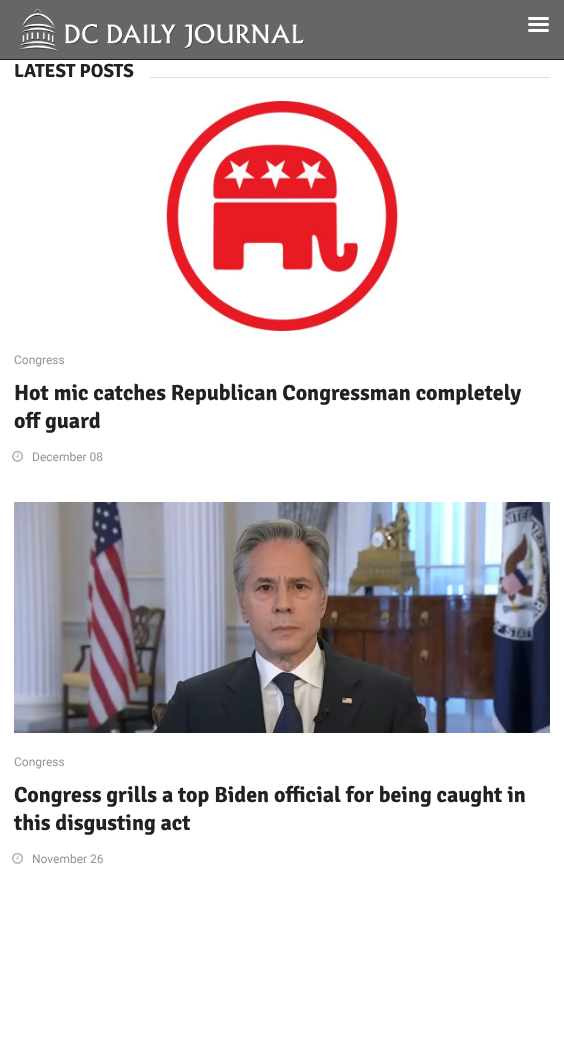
<?xml version="1.0" encoding="UTF-8"?>
<svg xmlns="http://www.w3.org/2000/svg" xmlns:xlink="http://www.w3.org/1999/xlink" width="564" height="1062">
  <rect width="100%" height="100%" fill="#ffffff" />
  <rect width="564" height="59" fill="#666666" />
  <image x="528" y="17" width="21" height="15" xlink:href="image1.png" />
  <rect y="59" width="564" height="1" fill="#212121" />
  <image x="20" y="9" width="285" height="43" xlink:href="image2.png" />
  <rect x="150" y="77" width="400" height="1" fill="#dedede" />
  <image x="164" y="101" width="236" height="230" xlink:href="image3.png" />
  <image x="12" y="450" width="12" height="12" xlink:href="image4.png" />
  <image x="14" y="502" width="536" height="231" xlink:href="image5.png" />
  <image x="12" y="852" width="12" height="12" xlink:href="image4.png" />
  <text x="14" y="77" style="font-family: Signika; font-size: 19px; font-weight: bold; fill: #212121">LATEST POSTS</text>
  <text x="14" y="364" style="font-family: Roboto; font-size: 12px; fill: #959494">Congress</text>
  <text x="14" y="400" style="font-family: Signika; font-size: 22px; font-weight: bold; fill: #212121">Hot mic catches Republican Congressman completely</text>
  <text x="14" y="428" style="font-family: Signika; font-size: 22px; font-weight: bold; fill: #212121">off guard</text>
  <text x="32" y="461" style="font-family: Roboto; font-size: 12px; fill: #959494">December 08</text>
  <text x="14" y="766" style="font-family: Roboto; font-size: 12px; fill: #959494">Congress</text>
  <text x="14" y="802" style="font-family: Signika; font-size: 22px; font-weight: bold; fill: #212121">Congress grills a top Biden official for being caught in</text>
  <text x="14" y="830" style="font-family: Signika; font-size: 22px; font-weight: bold; fill: #212121">this disgusting act</text>
  <text x="32" y="863" style="font-family: Roboto; font-size: 12px; fill: #959494">November 26</text>
</svg>
